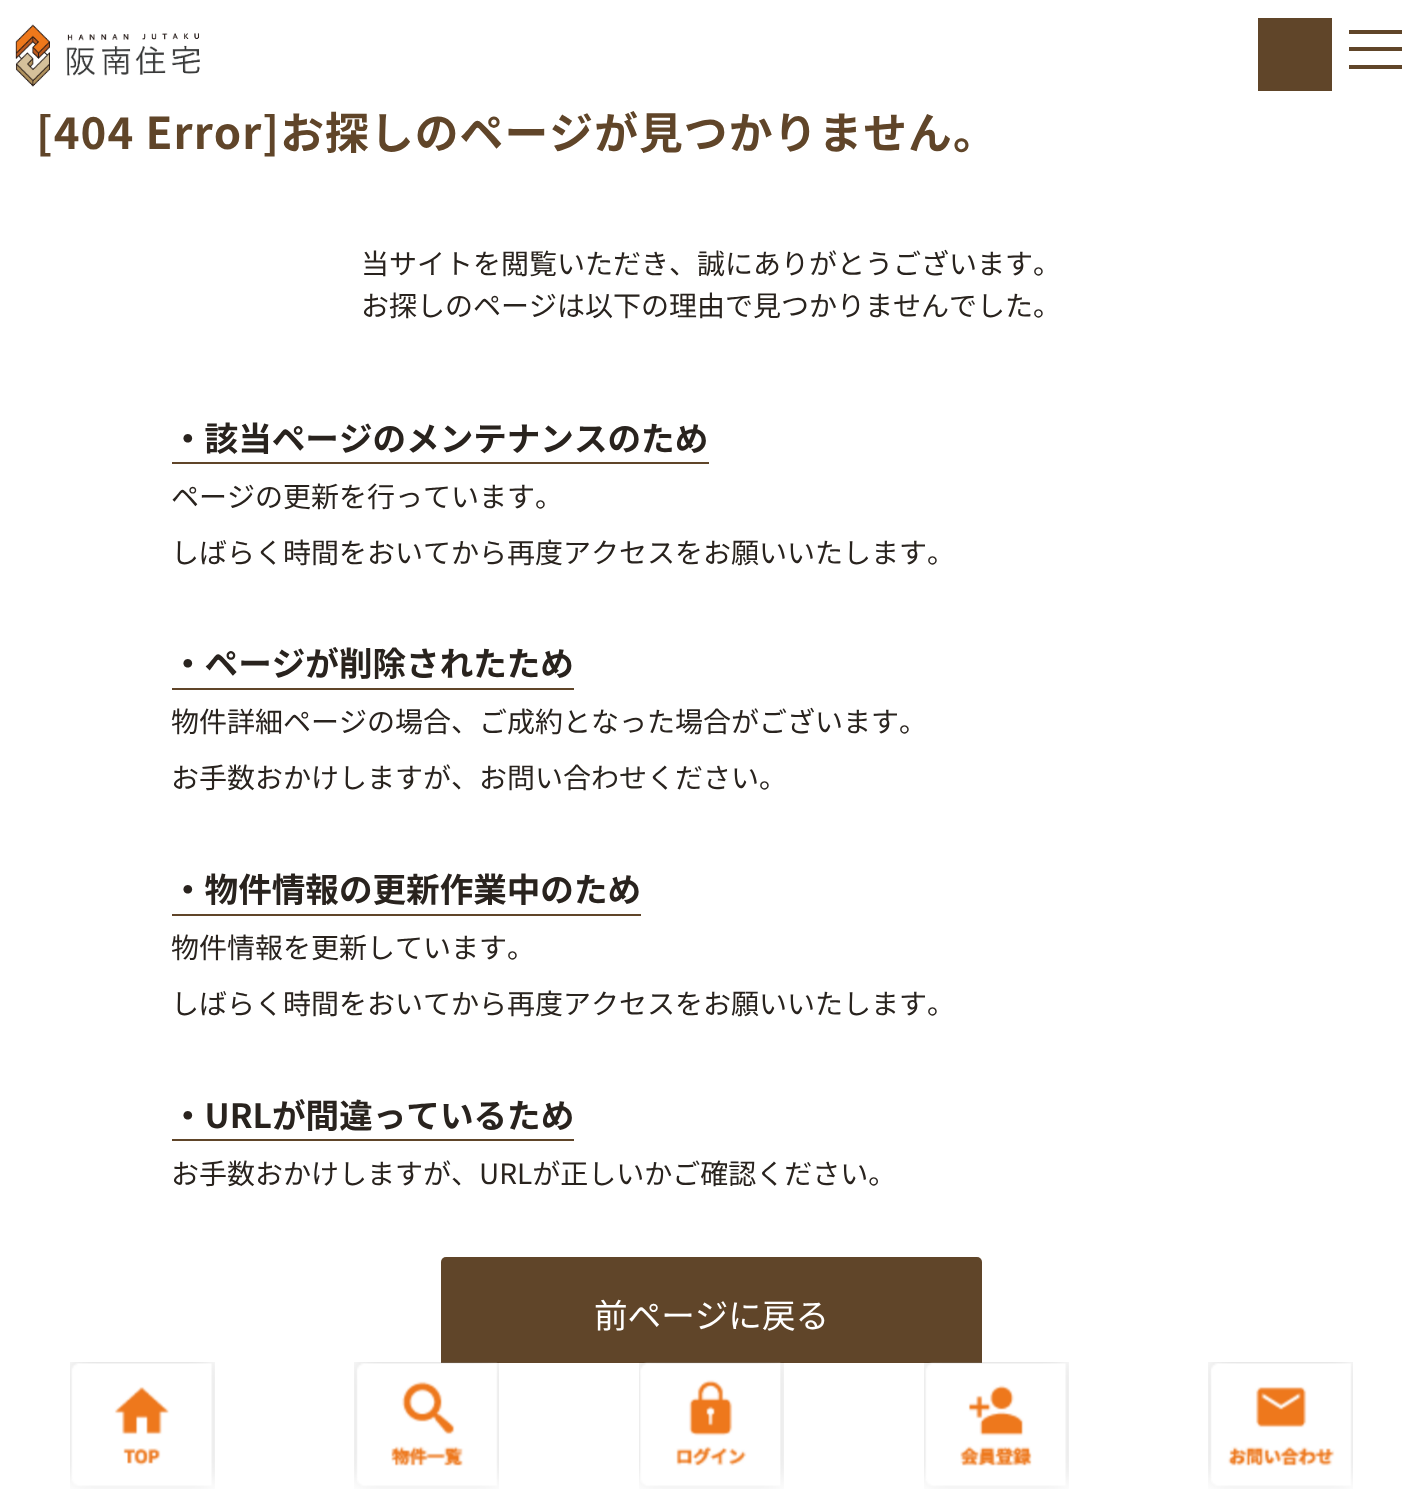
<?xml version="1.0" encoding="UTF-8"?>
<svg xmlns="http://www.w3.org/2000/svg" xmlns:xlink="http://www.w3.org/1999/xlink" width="1422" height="1493">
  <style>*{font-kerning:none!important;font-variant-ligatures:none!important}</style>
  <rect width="100%" height="100%" fill="#ffffff" />
  <image x="15" y="24" width="185" height="63" xlink:href="image1.png" />
  <rect x="1258" y="18" width="74" height="73" fill="#604529" />
  <rect x="1349" y="30" width="53" height="4" fill="#604529" />
  <rect x="1349" y="47" width="53" height="4" fill="#604529" />
  <rect x="1349" y="65" width="53" height="4" fill="#604529" />
  <rect x="172" y="462" width="537" height="2" fill="#604529" />
  <rect x="172" y="688" width="402" height="2" fill="#604529" />
  <rect x="172" y="914" width="469" height="2" fill="#604529" />
  <rect x="172" y="1139" width="402" height="2" fill="#604529" />
  <rect x="441" y="1257" width="541" height="115" rx="5" fill="#604529" />
  <rect x="441" y="1363" width="541" height="9" fill="#ffffff" />
  <image x="70" y="1362" width="145" height="127" xlink:href="image2.png" />
  <image x="354" y="1362" width="145" height="127" xlink:href="image3.png" />
  <image x="639" y="1362" width="145" height="127" xlink:href="image4.png" />
  <image x="924" y="1362" width="145" height="127" xlink:href="image5.png" />
  <image x="1208" y="1362" width="145" height="127" xlink:href="image6.png" />
  <text x="36" y="149" style="font-family: Noto Sans JP; font-size: 43.75px; font-weight: bold; letter-spacing: 1.1px; fill: #604529">[404 Error]お探しのページが見つかりません。</text>
  <text x="361" y="274" style="font-family: Noto Sans JP; font-size: 28px; fill: #29231e">当サイトを閲覧いただき、誠にありがとうございます</text>
  <text x="1033" y="274" style="font-family: Noto Sans JP; font-size: 28px; fill: #29231e">。</text>
  <text x="361" y="316" style="font-family: Noto Sans JP; font-size: 28px; fill: #29231e">お探しのページは以下の理由で見つかりませんでした。</text>
  <text x="171" y="451" style="font-family: Noto Sans JP; font-size: 33.6px; font-weight: bold; fill: #29231e">・該当ページのメンテナンスのため</text>
  <text x="171" y="507" style="font-family: Noto Sans JP; font-size: 28px; fill: #29231e">ページの更新を行っています。</text>
  <text x="171" y="563" style="font-family: Noto Sans JP; font-size: 28px; fill: #29231e">しばらく時間をおいてから再度アクセスをお願いいたします。</text>
  <text x="171" y="676" style="font-family: Noto Sans JP; font-size: 33.6px; font-weight: bold; fill: #29231e">・ページが削除されたため</text>
  <text x="171" y="732" style="font-family: Noto Sans JP; font-size: 28px; fill: #29231e">物件詳細ページの場合、ご成約となった場合がございます。</text>
  <text x="171" y="788" style="font-family: Noto Sans JP; font-size: 28px; fill: #29231e">お手数おかけしますが、お問い合わせください。</text>
  <text x="171" y="902" style="font-family: Noto Sans JP; font-size: 33.6px; font-weight: bold; fill: #29231e">・物件情報の更新作業中のため</text>
  <text x="171" y="958" style="font-family: Noto Sans JP; font-size: 28px; fill: #29231e">物件情報を更新しています。</text>
  <text x="171" y="1014" style="font-family: Noto Sans JP; font-size: 28px; fill: #29231e">しばらく時間をおいてから再度アクセスをお願いいたします。</text>
  <text x="171" y="1128" style="font-family: Noto Sans JP; font-size: 33.6px; font-weight: bold; fill: #29231e">・URLが間違っているため</text>
  <text x="171" y="1184" style="font-family: Noto Sans JP; font-size: 28px; fill: #29231e">お手数おかけしますが、URLが正しいかご確認ください。</text>
  <text x="594" y="1328" style="font-family: Noto Sans JP; font-size: 33.6px; fill: #ffffff">前ページに戻る</text>
</svg>
